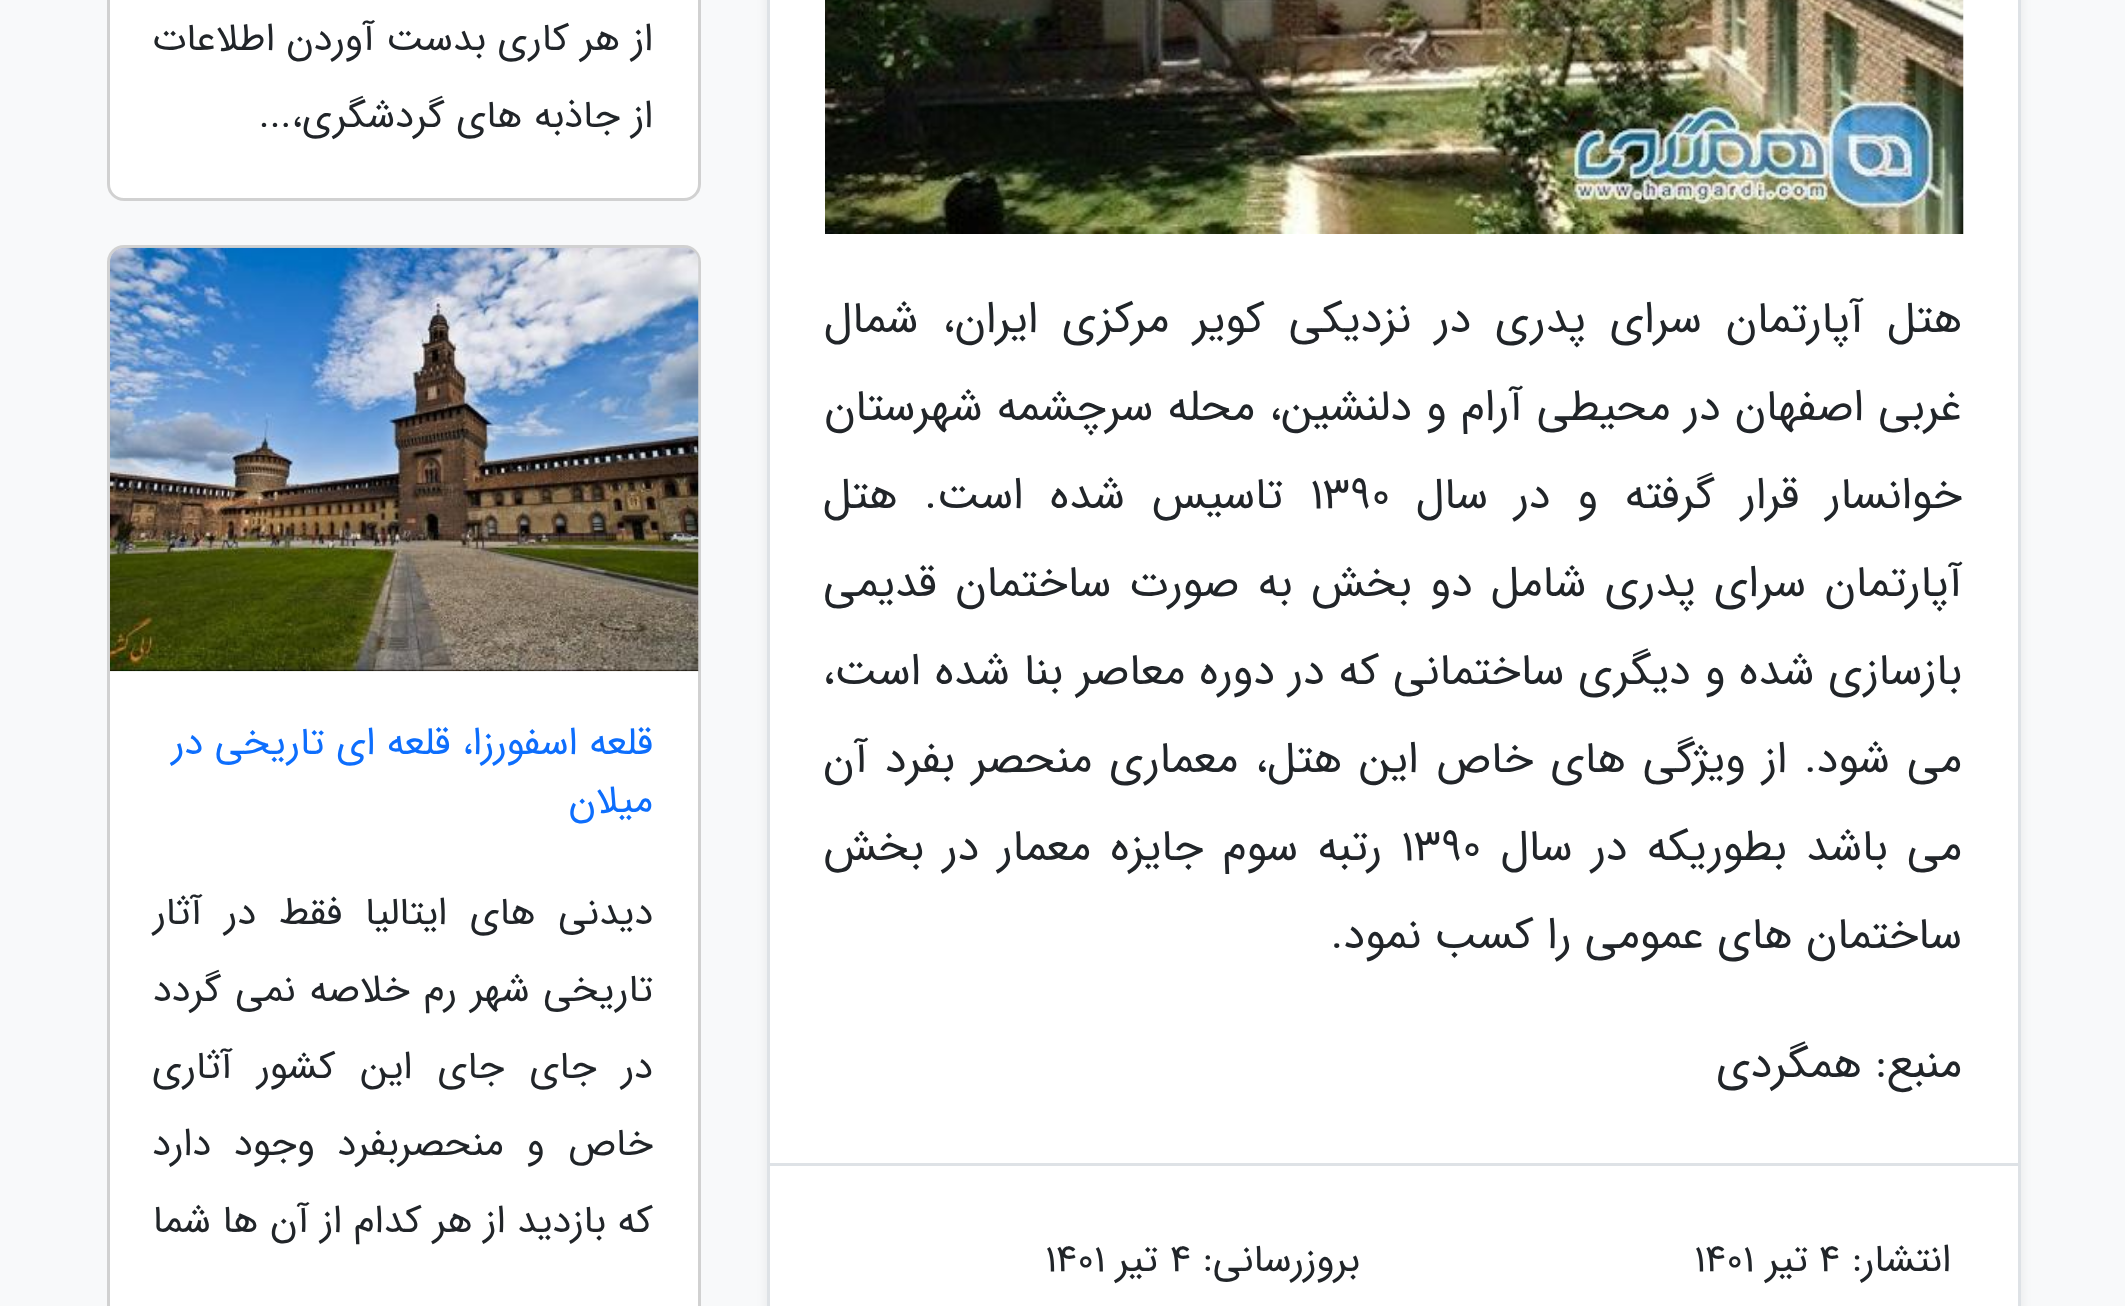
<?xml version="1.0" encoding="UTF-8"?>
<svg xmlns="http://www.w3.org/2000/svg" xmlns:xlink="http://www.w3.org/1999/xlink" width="2125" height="1306">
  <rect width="100%" height="100%" fill="#f8f9fa" />
  <rect x="767" y="-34" width="1254" height="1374" rx="17" fill="#000000" fill-opacity="0.07" filter="blur(5.5px)" />
  <rect x="768.5" y="-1.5" width="1251" height="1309" fill="#ffffff" stroke="#dee2e6" stroke-width="3" />
  <image x="825" y="0" width="1139" height="234" xlink:href="image1.png" />
  <rect x="770" y="1163" width="1249" height="3" fill="#dee2e6" />
  <rect x="107" y="-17" width="594" height="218" rx="17" fill="#ffffff" />
  <rect x="108.5" y="-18.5" width="591" height="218" rx="15.5" fill="none" stroke="#000000" stroke-opacity="0.18" stroke-width="3" />
  <rect x="107" y="245" width="594" height="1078" rx="17" fill="#ffffff" />
  <rect x="108.5" y="246.5" width="591" height="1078" rx="15.5" fill="none" stroke="#000000" stroke-opacity="0.18" stroke-width="3" />
  <image x="110" y="247" width="589" height="425" xlink:href="image2.png" />
  <text x="1962" y="332" word-spacing="10.75" style="font-family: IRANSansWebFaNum; font-size: 44px; direction: rtl; fill: #212529">هتل آپارتمان سرای پدری در نزدیکی کویر مرکزی ایران، شمال</text>
  <text x="1962" y="420" word-spacing="1" style="font-family: IRANSansWebFaNum; font-size: 44px; direction: rtl; fill: #212529">غربی اصفهان در محیطی آرام و دلنشین، محله سرچشمه شهرستان</text>
  <text x="1962" y="508" word-spacing="13.5" style="font-family: IRANSansWebFaNum; font-size: 44px; direction: rtl; fill: #212529">خوانسار قرار گرفته و در سال</text>
  <text x="1310" y="508" style="font-family: IRANSansWebFaNum; font-size: 44px; fill: #212529">1390</text>
  <text x="1283" y="508" word-spacing="13.5" style="font-family: IRANSansWebFaNum; font-size: 44px; direction: rtl; fill: #212529">تاسیس شده است. هتل</text>
  <text x="1962" y="596" word-spacing="5.25" style="font-family: IRANSansWebFaNum; font-size: 44px; direction: rtl; fill: #212529">آپارتمان سرای پدری شامل دو بخش به صورت ساختمان قدیمی</text>
  <text x="1962" y="684" word-spacing="0.75" style="font-family: IRANSansWebFaNum; font-size: 44px; direction: rtl; fill: #212529">بازسازی شده و دیگری ساختمانی که در دوره معاصر بنا شده است،</text>
  <text x="1962" y="772" word-spacing="3.75" style="font-family: IRANSansWebFaNum; font-size: 44px; direction: rtl; fill: #212529">می شود. از ویژگی های خاص این هتل، معماری منحصر بفرد آن</text>
  <text x="1962" y="860" word-spacing="6" style="font-family: IRANSansWebFaNum; font-size: 44px; direction: rtl; fill: #212529">می باشد بطوریکه در سال</text>
  <text x="1401" y="860" style="font-family: IRANSansWebFaNum; font-size: 44px; fill: #212529">1390</text>
  <text x="1382" y="860" word-spacing="6" style="font-family: IRANSansWebFaNum; font-size: 44px; direction: rtl; fill: #212529">رتبه سوم جایزه معمار در بخش</text>
  <text x="1962" y="948" style="font-family: IRANSansWebFaNum; font-size: 44px; direction: rtl; fill: #212529">ساختمان های عمومی را کسب نمود.</text>
  <text x="1962" y="1077" style="font-family: IRANSansWebFaNum; font-size: 44px; direction: rtl; fill: #212529">منبع: همگردی</text>
  <text x="1951" y="1271" style="font-family: IRANSansWebFaNum; font-size: 38.5px; direction: rtl; fill: #212529">انتشار:</text>
  <text x="1819" y="1271" style="font-family: IRANSansWebFaNum; font-size: 38.5px; fill: #212529">4</text>
  <text x="1808" y="1271" style="font-family: IRANSansWebFaNum; font-size: 38.5px; direction: rtl; fill: #212529">تیر</text>
  <text x="1694" y="1271" style="font-family: IRANSansWebFaNum; font-size: 38.5px; fill: #212529">1401</text>
  <text x="1360" y="1271" style="font-family: IRANSansWebFaNum; font-size: 38.5px; direction: rtl; fill: #212529">بروزرسانی:</text>
  <text x="1170" y="1271" style="font-family: IRANSansWebFaNum; font-size: 38.5px; fill: #212529">4</text>
  <text x="1158" y="1271" style="font-family: IRANSansWebFaNum; font-size: 38.5px; direction: rtl; fill: #212529">تیر</text>
  <text x="1045" y="1271" style="font-family: IRANSansWebFaNum; font-size: 38.5px; fill: #212529">1401</text>
  <text x="653" y="50" style="font-family: IRANSansWebFaNum; font-size: 38.5px; direction: rtl; fill: #212529">از هر کاری بدست آوردن اطلاعات</text>
  <text x="653" y="127" style="font-family: IRANSansWebFaNum; font-size: 38.5px; direction: rtl; fill: #212529">از جاذبه های گردشگری،...</text>
  <text x="653" y="754" style="font-family: IRANSansWebFaNum; font-size: 38.5px; direction: rtl; fill: #0d6efd">قلعه اسفورزا، قلعه ای تاریخی در</text>
  <text x="653" y="812" style="font-family: IRANSansWebFaNum; font-size: 38.5px; direction: rtl; fill: #0d6efd">میلان</text>
  <text x="653" y="924" word-spacing="11" style="font-family: IRANSansWebFaNum; font-size: 38.5px; direction: rtl; fill: #212529">دیدنی های ایتالیا فقط در آثار</text>
  <text x="653" y="1001" word-spacing="2.25" style="font-family: IRANSansWebFaNum; font-size: 38.5px; direction: rtl; fill: #212529">تاریخی شهر رم خلاصه نمی گردد</text>
  <text x="653" y="1078" word-spacing="13.5" style="font-family: IRANSansWebFaNum; font-size: 38.5px; direction: rtl; fill: #212529">در جای جای این کشور آثاری</text>
  <text x="653" y="1155" word-spacing="11" style="font-family: IRANSansWebFaNum; font-size: 38.5px; direction: rtl; fill: #212529">خاص و منحصربفرد وجود دارد</text>
  <text x="653" y="1232" style="font-family: IRANSansWebFaNum; font-size: 38.5px; direction: rtl; fill: #212529">که بازدید از هر کدام از آن ها شما</text>
</svg>
